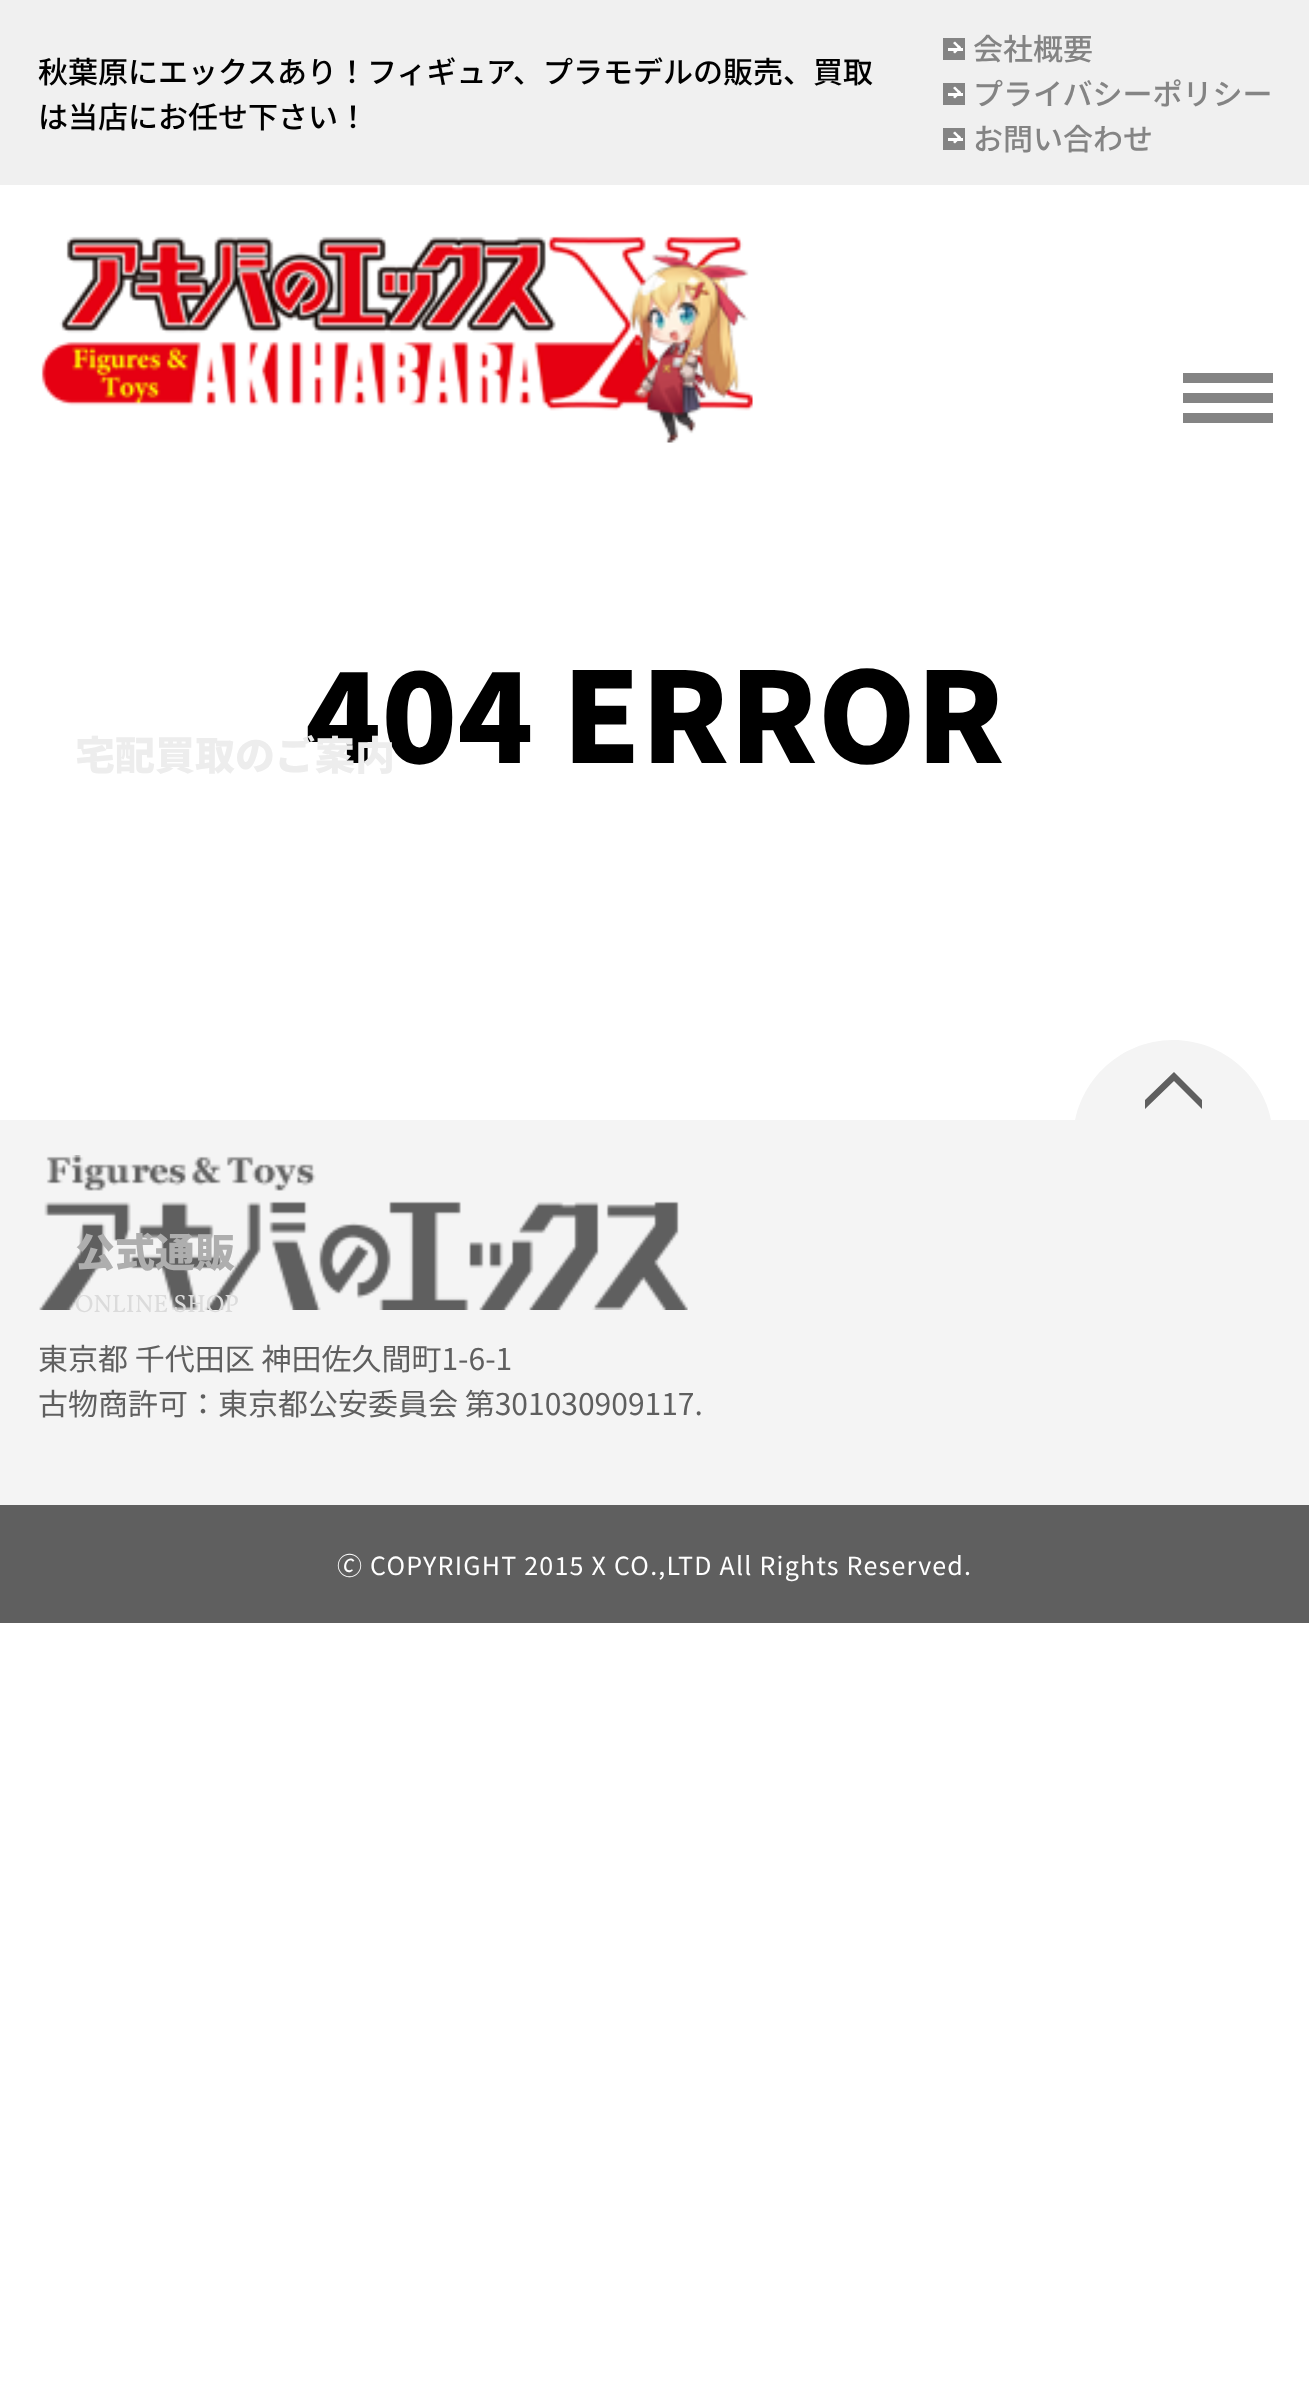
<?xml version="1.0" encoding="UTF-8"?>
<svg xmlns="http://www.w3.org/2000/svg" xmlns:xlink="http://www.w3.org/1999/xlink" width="1309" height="2398">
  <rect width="100%" height="100%" fill="#ffffff" />
  <rect width="1309" height="185" fill="#f0f0f0" />
  <rect x="943" y="38" width="22" height="22" fill="#848484" />
  <path d="M 955 41.5 l 6 6 l -1.5 2 l -6.5 -6.5 z" fill="#ffffff" />
  <path d="M 959.5 45.5 l 1.5 2 l -6 6 l -2 -1.5 z" fill="#ffffff" />
  <rect x="948" y="48" width="15" height="3" fill="#ffffff" />
  <rect x="943" y="83" width="22" height="22" fill="#848484" />
  <path d="M 955 86.5 l 6 6 l -1.5 2 l -6.5 -6.5 z" fill="#ffffff" />
  <path d="M 959.5 90.5 l 1.5 2 l -6 6 l -2 -1.5 z" fill="#ffffff" />
  <rect x="948" y="93" width="15" height="3" fill="#ffffff" />
  <rect x="943" y="128" width="22" height="22" fill="#848484" />
  <path d="M 955 131.5 l 6 6 l -1.5 2 l -6.5 -6.5 z" fill="#ffffff" />
  <path d="M 959.5 135.5 l 1.5 2 l -6 6 l -2 -1.5 z" fill="#ffffff" />
  <rect x="948" y="138" width="15" height="3" fill="#ffffff" />
  <image x="41" y="236" width="712" height="207" xlink:href="image1.png" />
  <rect x="1183" y="373" width="90" height="10" fill="#848484" />
  <rect x="1183" y="393" width="90" height="10" fill="#848484" />
  <rect x="1183" y="413" width="90" height="10" fill="#848484" />
  <rect y="1120" width="1309" height="385" fill="#f4f4f4" />
  <path d="M 1173 1040 c 55 0 100 45 100 100 h -200 c 0 -55 45 -100 100 -100 z" fill="#f4f4f4" />
  <path d="M 1145 1100 v 9 l 29 -28 l 28 28 v -9 l -28 -28 z" fill="#5f5f5f" />
  <image x="39" y="1155" width="649" height="155" xlink:href="image2.png" />
  <rect y="1505" width="1309" height="118" fill="#5f5f5f" />
  <text x="38" y="83" style="font-family: Noto Sans JP; font-size: 30px; font-weight: 500; fill: #000000">秋葉原にエックスあり！フィギュア、プラモデルの販売、買取</text>
  <text x="38" y="128" style="font-family: Noto Sans JP; font-size: 30px; font-weight: 500; fill: #000000">は当店にお任せ下さい！</text>
  <text x="973" y="60" style="font-family: Noto Sans JP; font-size: 30px; font-weight: 500; fill: #848484">会社概要</text>
  <text x="973" y="105" style="font-family: Noto Sans JP; font-size: 30px; font-weight: 500; fill: #848484">プライバシーポリシー</text>
  <text x="973" y="150" style="font-family: Noto Sans JP; font-size: 30px; font-weight: 500; fill: #848484">お問い合わせ</text>
  <text x="75" y="1267" style="font-family: Noto Sans JP; font-size: 40px; font-weight: 900; fill: #aeaeae">公式通販</text>
  <text x="75" y="1312" style="font-family: Vollkorn; font-size: 25px; fill: #dbdbdb">ONLINE SHOP</text>
  <text x="305" y="763" style="font-family: Noto Sans JP; font-size: 125px; font-weight: 900; fill: #000000">404 ERROR</text>
  <text x="75" y="770" style="font-family: Noto Sans JP; font-size: 40px; font-weight: 900; fill: #ededed">宅配買取のご案内</text>
  <text x="38" y="1370" style="font-family: Noto Sans JP; font-size: 30px; fill: #5f5f5f">東京都 千代田区 神田佐久間町1-6-1</text>
  <text x="38" y="1415" style="font-family: Noto Sans JP; font-size: 30px; fill: #5f5f5f">古物商許可：東京都公安委員会 第301030909117.</text>
  <text x="337" y="1575" style="font-family: Noto Sans JP; font-size: 25px; letter-spacing: 1.25px; fill: #ffffff">🄫 COPYRIGHT 2015 X CO.,LTD All Rights Reserved.</text>
</svg>
